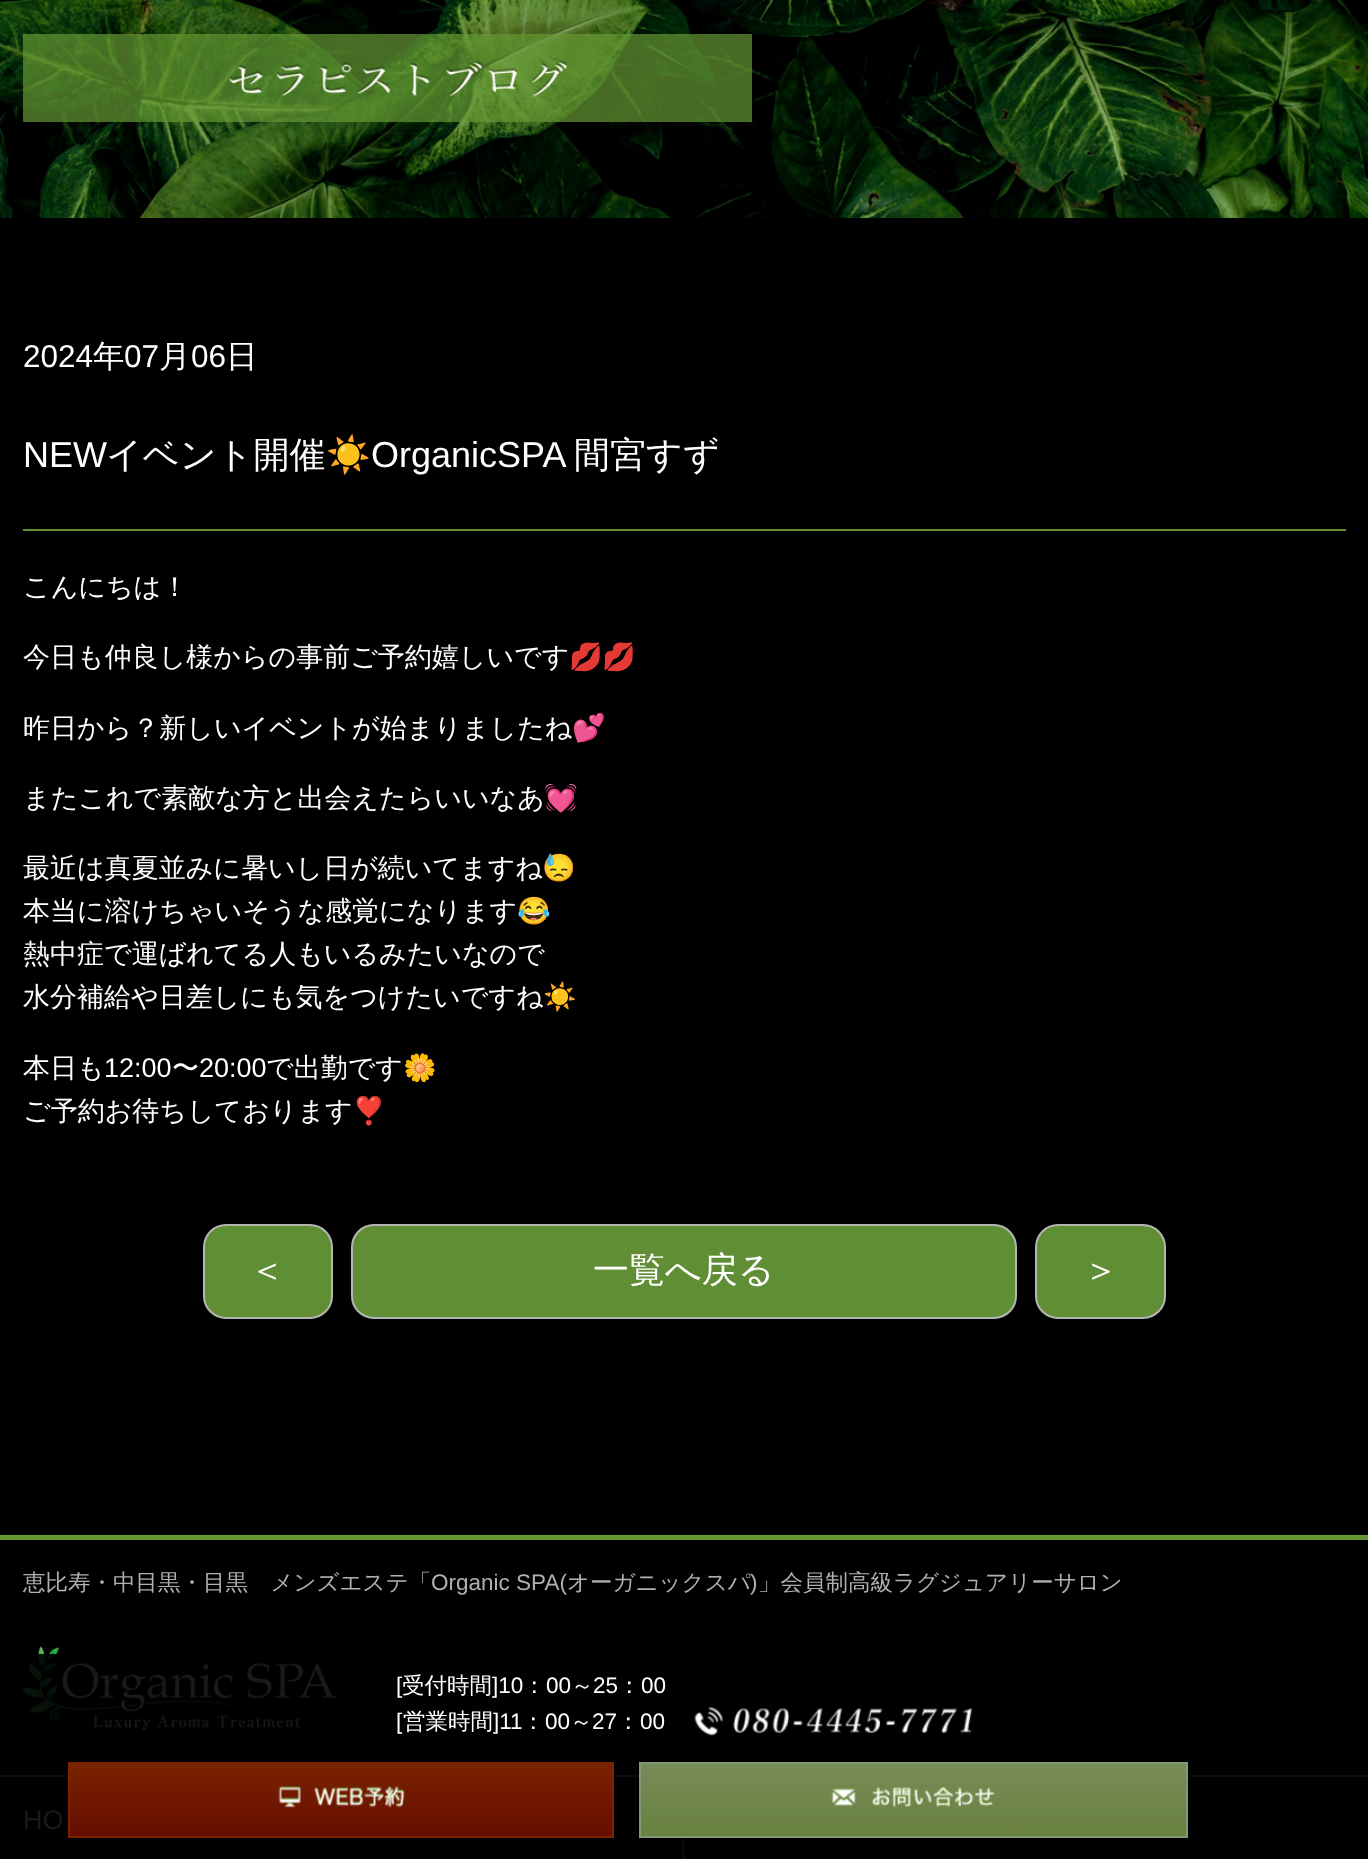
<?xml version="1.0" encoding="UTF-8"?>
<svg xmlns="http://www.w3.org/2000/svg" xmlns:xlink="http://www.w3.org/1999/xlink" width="1368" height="1859">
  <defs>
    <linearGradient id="g1" gradientUnits="userSpaceOnUse" x1="341" y1="1764" x2="341" y2="1836"><stop offset="0" stop-color="#7a2300" /><stop offset="1" stop-color="#660d00" /></linearGradient>
    <linearGradient id="g2" gradientUnits="userSpaceOnUse" x1="914" y1="1764" x2="914" y2="1836"><stop offset="0" stop-color="#778b58" /><stop offset="1" stop-color="#698140" /></linearGradient>
  </defs>
  <rect width="100%" height="100%" fill="#000000" />
  <image x="0" y="0" width="1368" height="218" xlink:href="image1.png" />
  <rect x="23" y="34" width="729" height="88" fill="#659833" fill-opacity="0.7" />
  <image x="229" y="60" width="338" height="37" xlink:href="image2.png" />
  <rect x="23" y="529" width="1323" height="2" fill="#608e35" />
  <rect x="204" y="1225" width="128" height="93" rx="22" fill="#608e35" stroke="#b5b5b5" stroke-width="2" />
  <rect x="352" y="1225" width="664" height="93" rx="22" fill="#608e35" stroke="#b5b5b5" stroke-width="2" />
  <rect x="1036" y="1225" width="129" height="93" rx="22" fill="#608e35" stroke="#b5b5b5" stroke-width="2" />
  <rect y="1535" width="1368" height="5" fill="#659833" />
  <image x="22" y="1646" width="314" height="84" xlink:href="image3.png" />
  <rect x="1188" y="1775" width="180" height="2" fill="#0b0b0b" />
  <rect y="1775" width="639" height="2" fill="#0b0b0b" />
  <rect x="682" y="1838" width="2" height="21" fill="#0b0b0b" />
  <image x="694" y="1707" width="279" height="29" xlink:href="image4.png" />
  <rect x="70" y="1764" width="542" height="72" fill="url(#g1)" />
  <rect x="69" y="1763" width="544" height="74" fill="none" stroke="#7a2300" stroke-width="2" />
  <image x="278" y="1786" width="127" height="22" xlink:href="image5.png" />
  <rect x="641" y="1764" width="545" height="72" fill="url(#g2)" />
  <rect x="640" y="1763" width="547" height="74" fill="none" stroke="#819975" stroke-width="2" />
  <image x="831" y="1786" width="164" height="22" xlink:href="image6.png" />
  <text x="23" y="367" style="font-family: Liberation Sans; font-size: 31.5px; fill: #ffffff">2024</text>
  <text x="93" y="367" style="font-family: WenQuanYi Zen Hei; font-size: 31.5px; font-weight: 500; fill: #ffffff">年</text>
  <text x="124" y="367" style="font-family: Liberation Sans; font-size: 31.5px; fill: #ffffff">07</text>
  <text x="159" y="367" style="font-family: WenQuanYi Zen Hei; font-size: 31.5px; font-weight: 500; fill: #ffffff">月</text>
  <text x="191" y="367" style="font-family: Liberation Sans; font-size: 31.5px; fill: #ffffff">06</text>
  <text x="226" y="367" style="font-family: WenQuanYi Zen Hei; font-size: 31.5px; font-weight: 500; fill: #ffffff">日</text>
  <text x="23" y="467" style="font-family: Liberation Sans; font-size: 36px; fill: #ffffff">NEW</text>
  <text x="106" y="467" style="font-family: WenQuanYi Zen Hei; font-size: 36px; font-weight: 500; fill: #ffffff">イベント開催</text>
  <text x="326" y="467" style="font-family: Noto Color Emoji; font-size: 36px; fill: #ffffff">☀️</text>
  <text x="371" y="467" style="font-family: Liberation Sans; font-size: 36px; fill: #ffffff">OrganicSPA</text>
  <text x="574" y="467" style="font-family: WenQuanYi Zen Hei; font-size: 36px; font-weight: 500; fill: #ffffff">間宮すず</text>
  <text x="23" y="596" style="font-family: WenQuanYi Zen Hei; font-size: 27px; font-weight: 500; fill: #ffffff">こんにちは！</text>
  <text x="23" y="666" style="font-family: WenQuanYi Zen Hei; font-size: 27px; font-weight: 500; fill: #ffffff">今日も仲良し様からの事前ご予約嬉しいです</text>
  <text x="569" y="666" style="font-family: Noto Color Emoji; font-size: 27px; fill: #ffffff">💋💋</text>
  <text x="23" y="737" style="font-family: WenQuanYi Zen Hei; font-size: 27px; font-weight: 500; fill: #ffffff">昨日から？新しいイベントが始まりましたね</text>
  <text x="572" y="737" style="font-family: Noto Color Emoji; font-size: 27px; fill: #ffffff">💕</text>
  <text x="23" y="807" style="font-family: WenQuanYi Zen Hei; font-size: 27px; font-weight: 500; fill: #ffffff">またこれで素敵な方と出会えたらいいなあ</text>
  <text x="544" y="807" style="font-family: Noto Color Emoji; font-size: 27px; fill: #ffffff">💓</text>
  <text x="23" y="877" style="font-family: WenQuanYi Zen Hei; font-size: 27px; font-weight: 500; fill: #ffffff">最近は真夏並みに暑いし日が続いてますね</text>
  <text x="542" y="877" style="font-family: Noto Color Emoji; font-size: 27px; fill: #ffffff">😓</text>
  <text x="23" y="920" style="font-family: WenQuanYi Zen Hei; font-size: 27px; font-weight: 500; fill: #ffffff">本当に溶けちゃいそうな感覚になります</text>
  <text x="517" y="920" style="font-family: Noto Color Emoji; font-size: 27px; fill: #ffffff">😂</text>
  <text x="23" y="963" style="font-family: WenQuanYi Zen Hei; font-size: 27px; font-weight: 500; fill: #ffffff">熱中症で運ばれてる人もいるみたいなので</text>
  <text x="23" y="1006" style="font-family: WenQuanYi Zen Hei; font-size: 27px; font-weight: 500; fill: #ffffff">水分補給や日差しにも気をつけたいですね</text>
  <text x="543" y="1006" style="font-family: Noto Color Emoji; font-size: 27px; fill: #ffffff">☀️</text>
  <text x="23" y="1077" style="font-family: WenQuanYi Zen Hei; font-size: 27px; font-weight: 500; fill: #ffffff">本日も</text>
  <text x="104" y="1077" style="font-family: Liberation Sans; font-size: 27px; fill: #ffffff">12:00</text>
  <text x="172" y="1077" style="font-family: WenQuanYi Zen Hei; font-size: 27px; font-weight: 500; fill: #ffffff">〜</text>
  <text x="199" y="1077" style="font-family: Liberation Sans; font-size: 27px; fill: #ffffff">20:00</text>
  <text x="266" y="1077" style="font-family: WenQuanYi Zen Hei; font-size: 27px; font-weight: 500; fill: #ffffff">で出勤です</text>
  <text x="403" y="1077" style="font-family: Noto Color Emoji; font-size: 27px; fill: #ffffff">🌼</text>
  <text x="23" y="1120" style="font-family: WenQuanYi Zen Hei; font-size: 27px; font-weight: 500; fill: #ffffff">ご予約お待ちしております</text>
  <text x="352" y="1120" style="font-family: Noto Color Emoji; font-size: 27px; fill: #ffffff">❣️</text>
  <text x="249" y="1282" style="font-family: WenQuanYi Zen Hei; font-size: 36px; font-weight: 500; fill: #ffffff">＜</text>
  <text x="593" y="1282" style="font-family: WenQuanYi Zen Hei; font-size: 36px; font-weight: 500; fill: #ffffff">一覧へ戻る</text>
  <text x="1083" y="1282" style="font-family: WenQuanYi Zen Hei; font-size: 36px; font-weight: 500; fill: #ffffff">＞</text>
  <text x="23" y="1590" style="font-family: WenQuanYi Zen Hei; font-size: 22.5px; font-weight: 500; fill: #b0b0b0">恵比寿・中目黒・目黒　メンズエステ「</text>
  <text x="431" y="1590" style="font-family: Liberation Sans; font-size: 22.5px; fill: #b0b0b0">Organic SPA(</text>
  <text x="567" y="1590" style="font-family: WenQuanYi Zen Hei; font-size: 22.5px; font-weight: 500; fill: #b0b0b0">オーガニックスパ</text>
  <text x="750" y="1590" style="font-family: Liberation Sans; font-size: 22.5px; fill: #b0b0b0">)</text>
  <text x="758" y="1590" style="font-family: WenQuanYi Zen Hei; font-size: 22.5px; font-weight: 500; fill: #b0b0b0">」会員制高級ラグジュアリーサロン</text>
  <text x="23" y="1829" style="font-family: Liberation Sans; font-size: 27px; fill: #191919">HO</text>
  <text x="396" y="1693" style="font-family: Liberation Sans; font-size: 22.5px; fill: #ffffff">[</text>
  <text x="402" y="1693" style="font-family: WenQuanYi Zen Hei; font-size: 22.5px; font-weight: 500; fill: #ffffff">受付時間</text>
  <text x="492" y="1693" style="font-family: Liberation Sans; font-size: 22.5px; fill: #ffffff">]10</text>
  <text x="523" y="1693" style="font-family: WenQuanYi Zen Hei; font-size: 22.5px; font-weight: 500; fill: #ffffff">：</text>
  <text x="546" y="1693" style="font-family: Liberation Sans; font-size: 22.5px; fill: #ffffff">00</text>
  <text x="571" y="1693" style="font-family: WenQuanYi Zen Hei; font-size: 22.5px; font-weight: 500; fill: #ffffff">～</text>
  <text x="593" y="1693" style="font-family: Liberation Sans; font-size: 22.5px; fill: #ffffff">25</text>
  <text x="618" y="1693" style="font-family: WenQuanYi Zen Hei; font-size: 22.5px; font-weight: 500; fill: #ffffff">：</text>
  <text x="641" y="1693" style="font-family: Liberation Sans; font-size: 22.5px; fill: #ffffff">00</text>
  <text x="396" y="1729" style="font-family: Liberation Sans; font-size: 22.5px; fill: #ffffff">[</text>
  <text x="403" y="1729" style="font-family: WenQuanYi Zen Hei; font-size: 22.5px; font-weight: 500; fill: #ffffff">営業時間</text>
  <text x="493" y="1729" style="font-family: Liberation Sans; font-size: 22.5px; fill: #ffffff">]11</text>
  <text x="522" y="1729" style="font-family: WenQuanYi Zen Hei; font-size: 22.5px; font-weight: 500; fill: #ffffff">：</text>
  <text x="545" y="1729" style="font-family: Liberation Sans; font-size: 22.5px; fill: #ffffff">00</text>
  <text x="570" y="1729" style="font-family: WenQuanYi Zen Hei; font-size: 22.5px; font-weight: 500; fill: #ffffff">～</text>
  <text x="592" y="1729" style="font-family: Liberation Sans; font-size: 22.5px; fill: #ffffff">27</text>
  <text x="617" y="1729" style="font-family: WenQuanYi Zen Hei; font-size: 22.5px; font-weight: 500; fill: #ffffff">：</text>
  <text x="640" y="1729" style="font-family: Liberation Sans; font-size: 22.5px; fill: #ffffff">00</text>
</svg>
